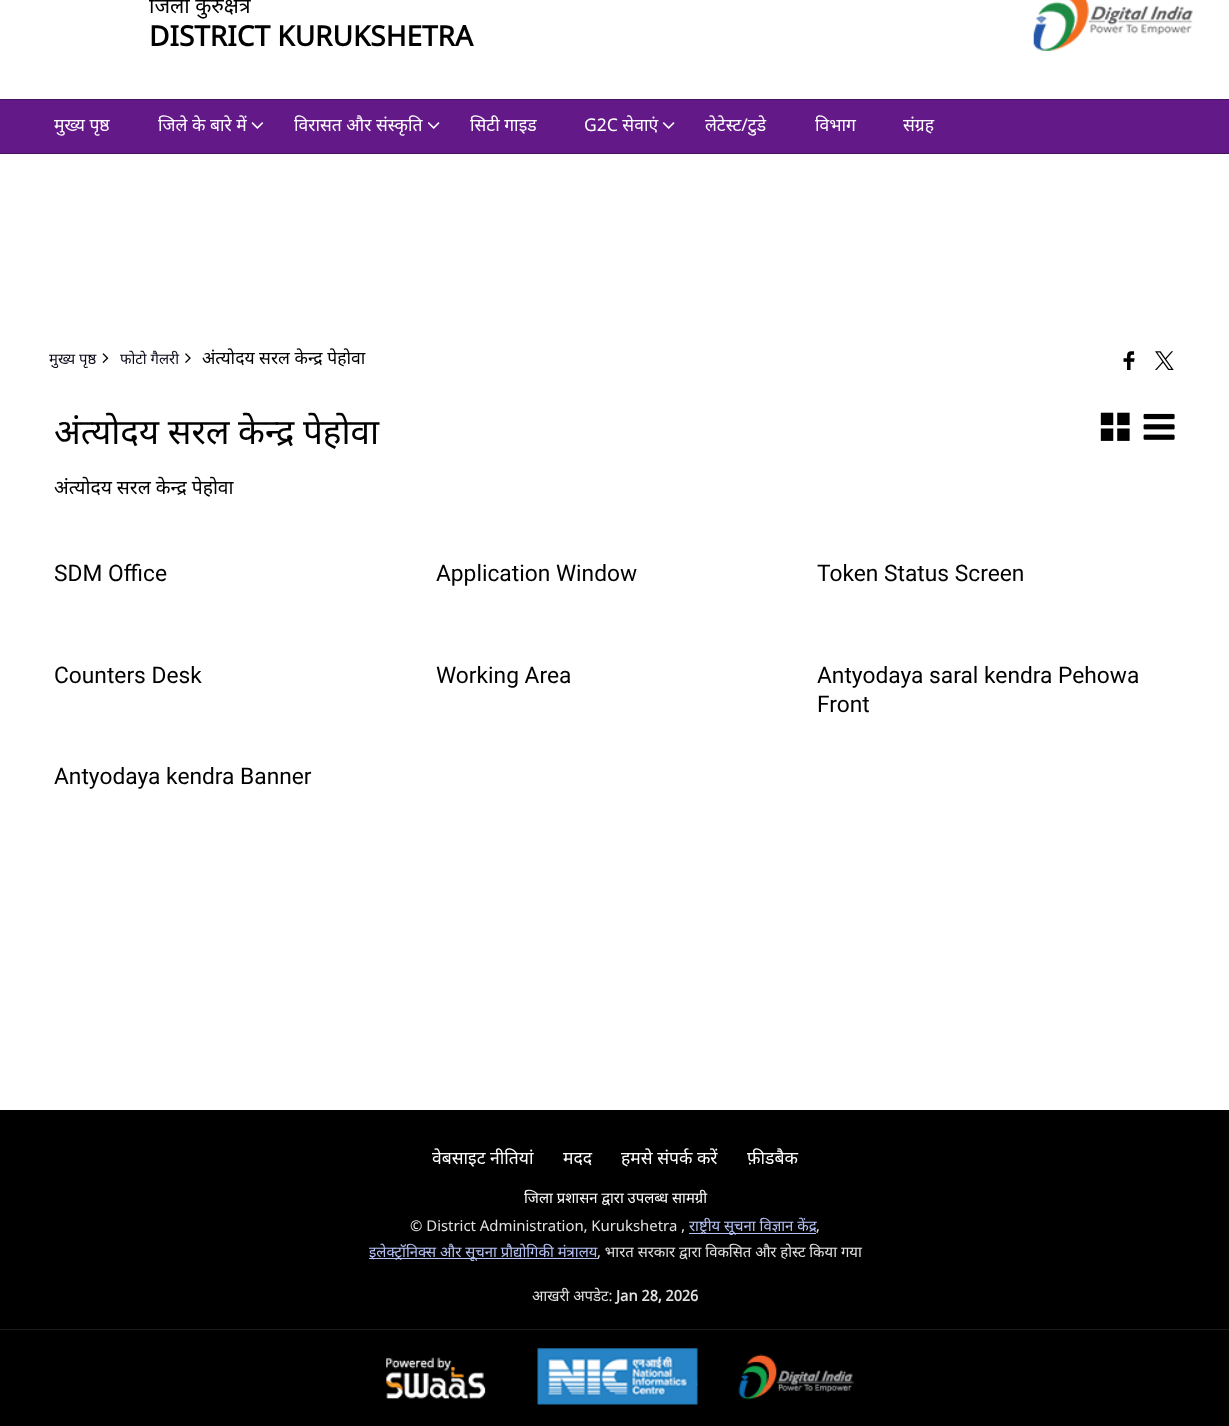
<?xml version="1.0" encoding="UTF-8"?>
<svg xmlns="http://www.w3.org/2000/svg" xmlns:xlink="http://www.w3.org/1999/xlink" width="1229" height="1426">
  <rect width="100%" height="100%" fill="#ffffff" />
  <image x="1033" y="0" width="160" height="51" xlink:href="image1.png" />
  <rect y="100" width="1229" height="53" fill="#631988" />
  <rect y="99" width="1229" height="1" fill="#45125f" />
  <rect y="153" width="1229" height="1" fill="#45125f" />
  <image x="251" y="122" width="13" height="7" xlink:href="image2.png" />
  <image x="427" y="122" width="13" height="7" xlink:href="image3.png" />
  <image x="662" y="122" width="13" height="7" xlink:href="image3.png" />
  <image x="102" y="353" width="7" height="10" xlink:href="image4.png" />
  <image x="185" y="353" width="6" height="10" xlink:href="image5.png" />
  <image x="1123" y="351" width="12" height="19" xlink:href="image6.png" />
  <image x="1155" y="351" width="19" height="19" xlink:href="image7.png" />
  <image x="1100" y="412" width="30" height="29" xlink:href="image8.png" />
  <image x="1143" y="413" width="32" height="27" xlink:href="image9.png" />
  <rect y="1110" width="1229" height="316" fill="#000000" />
  <rect x="689" y="1233" width="127" height="1" fill="#b4c1f5" />
  <rect x="369" y="1258" width="229" height="1" fill="#b4c1f5" />
  <rect y="1329" width="1229" height="1" fill="#1a1a1a" />
  <image x="386" y="1357" width="100" height="42" xlink:href="image10.png" />
  <image x="537" y="1348" width="161" height="57" xlink:href="image11.png" />
  <image x="738" y="1354" width="116" height="46" xlink:href="image12.png" />
  <text x="149" y="13" style="font-family: Noto Sans; font-size: 21px; fill: #000000">जिला कुरुक्षेत्र</text>
  <text x="149" y="46" style="font-family: Noto Sans; font-size: 28px; font-weight: bold; fill: #000000">DISTRICT KURUKSHETRA</text>
  <text x="54" y="131" style="font-family: Noto Sans; font-size: 17.5px; fill: #ffffff">मुख्य पृष्ठ</text>
  <text x="158" y="131" style="font-family: Noto Sans; font-size: 17.5px; fill: #ffffff">जिले के बारे में</text>
  <text x="294" y="131" style="font-family: Noto Sans; font-size: 17.5px; fill: #ffffff">विरासत और संस्कृति</text>
  <text x="470" y="131" style="font-family: Noto Sans; font-size: 17.5px; fill: #ffffff">सिटी गाइड</text>
  <text x="584" y="131" style="font-family: Noto Sans; font-size: 17.5px; fill: #ffffff">G2C सेवाएं</text>
  <text x="705" y="131" style="font-family: Noto Sans; font-size: 17.5px; fill: #ffffff">लेटेस्ट/टुडे</text>
  <text x="815" y="131" style="font-family: Noto Sans; font-size: 17.5px; fill: #ffffff">विभाग</text>
  <text x="903" y="131" style="font-family: Noto Sans; font-size: 17.5px; fill: #ffffff">संग्रह</text>
  <text x="49" y="364" style="font-family: Noto Sans; font-size: 14.9px; fill: #0a0918">मुख्य पृष्ठ</text>
  <text x="120" y="364" style="font-family: Noto Sans; font-size: 14.9px; fill: #0a0918">फोटो गैलरी</text>
  <text x="202" y="364" style="font-family: Noto Sans; font-size: 17.5px; fill: #000000">अंत्योदय सरल केन्द्र पेहोवा</text>
  <text x="54" y="444" word-spacing="-0.5" style="font-family: Noto Sans; font-size: 35px; fill: #000000">अंत्योदय सरल केन्द्र पेहोवा</text>
  <text x="54" y="494" style="font-family: Noto Sans; font-size: 19.25px; fill: #000000">अंत्योदय सरल केन्द्र पेहोवा</text>
  <text x="54" y="581" style="font-family: Roboto; font-size: 22.75px; fill: #000000">SDM Office</text>
  <text x="436" y="581" style="font-family: Roboto; font-size: 22.75px; fill: #000000">Application Window</text>
  <text x="817" y="581" style="font-family: Roboto; font-size: 22.75px; fill: #000000">Token Status Screen</text>
  <text x="54" y="683" style="font-family: Roboto; font-size: 22.75px; fill: #000000">Counters Desk</text>
  <text x="436" y="683" style="font-family: Roboto; font-size: 22.75px; fill: #000000">Working Area</text>
  <text x="817" y="683" style="font-family: Roboto; font-size: 22.75px; fill: #000000">Antyodaya saral kendra Pehowa</text>
  <text x="817" y="712" style="font-family: Roboto; font-size: 22.75px; fill: #000000">Front</text>
  <text x="54" y="784" style="font-family: Roboto; font-size: 22.75px; fill: #000000">Antyodaya kendra Banner</text>
  <text x="432" y="1164" style="font-family: Noto Sans; font-size: 17.5px; fill: #ffffff">वेबसाइट नीतियां</text>
  <text x="563" y="1164" style="font-family: Noto Sans; font-size: 17.5px; fill: #ffffff">मदद</text>
  <text x="621" y="1164" style="font-family: Noto Sans; font-size: 17.5px; fill: #ffffff">हमसे संपर्क करें</text>
  <text x="747" y="1164" style="font-family: Noto Sans; font-size: 17.5px; fill: #ffffff">फ़ीडबैक</text>
  <text x="524" y="1203" style="font-family: Noto Sans; font-size: 14.9px; fill: #ffffff">जिला प्रशासन द्वारा उपलब्ध सामग्री</text>
  <text x="410" y="1231" style="font-family: 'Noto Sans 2'; font-size: 14.9px; fill: #e1e1e1">© District Administration, Kurukshetra ,</text>
  <text x="689" y="1231" style="font-family: Noto Sans; font-size: 14.9px; fill: #b4c1f5">राष्ट्रीय सूचना विज्ञान केंद्र</text>
  <text x="816" y="1231" style="font-family: 'Noto Sans 2'; font-size: 14.9px; fill: #e1e1e1">,</text>
  <text x="369" y="1257" style="font-family: Noto Sans; font-size: 14.9px; fill: #b4c1f5">इलेक्ट्रॉनिक्स और सूचना प्रौद्योगिकी मंत्रालय</text>
  <text x="597" y="1257" style="font-family: Noto Sans; font-size: 14.9px; fill: #e1e1e1">, भारत सरकार द्वारा विकसित और होस्ट किया गया</text>
  <text x="532" y="1301" style="font-family: Noto Sans; font-size: 14.9px; fill: #e1e1e1">आखरी अपडेट:</text>
  <text x="616" y="1301" style="font-family: Noto Sans; font-size: 14.9px; font-weight: bold; fill: #e1e1e1">Jan 28, 2026</text>
</svg>
